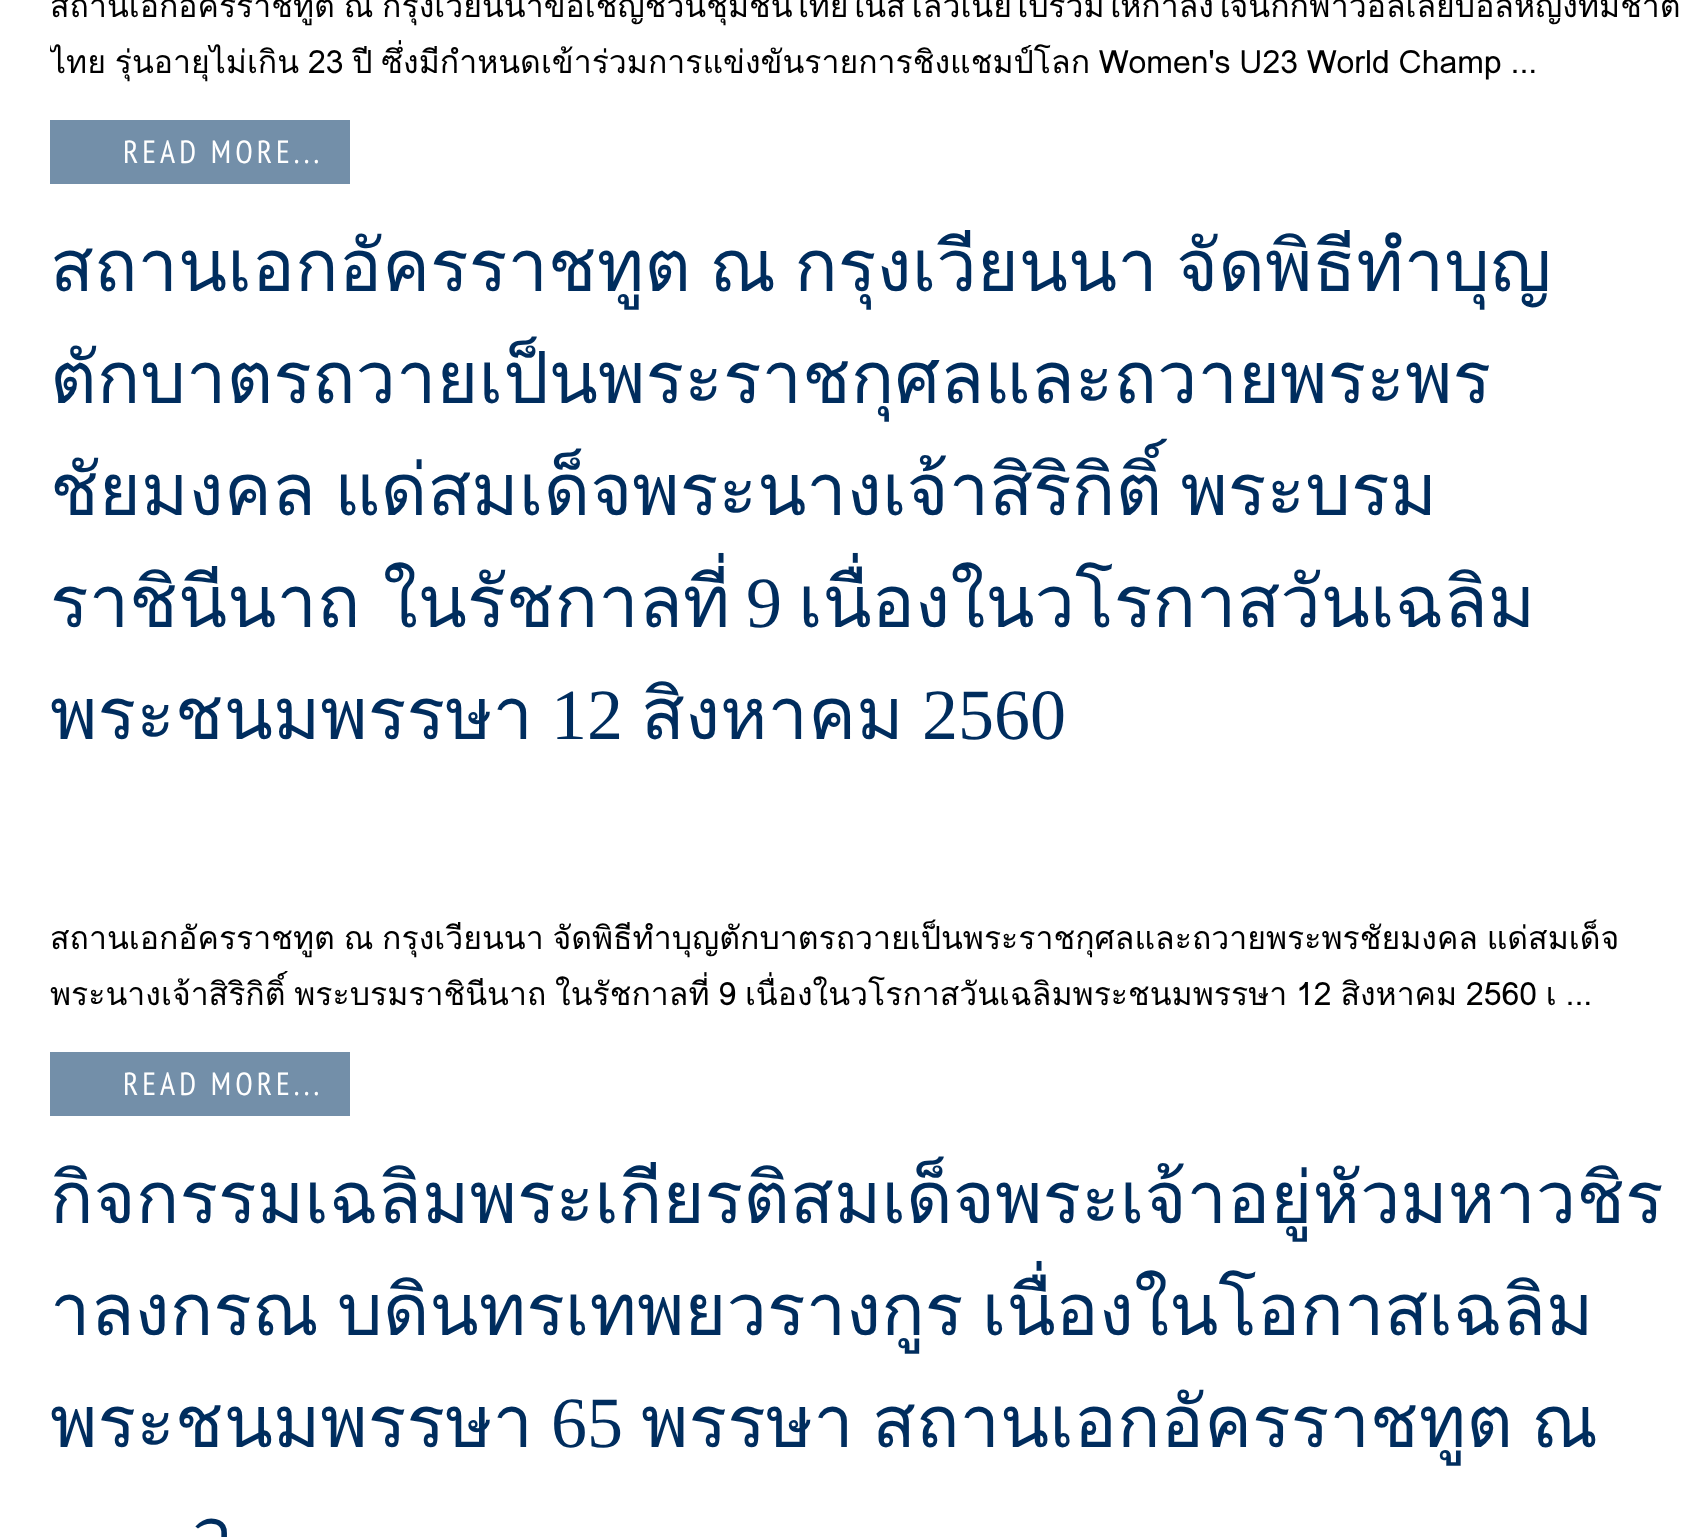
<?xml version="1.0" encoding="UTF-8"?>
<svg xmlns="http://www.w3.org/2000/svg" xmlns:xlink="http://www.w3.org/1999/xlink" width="1699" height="1537">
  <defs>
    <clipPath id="clip1"><rect x="50" width="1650" height="184" /></clipPath>
    <clipPath id="clip2"><rect x="50" y="184" width="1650" height="932" /></clipPath>
    <clipPath id="clip3"><rect x="50" y="1116" width="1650" height="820" /></clipPath>
  </defs>
  <rect width="100%" height="100%" fill="#ffffff" />
  <rect x="50" y="120" width="300" height="64" fill="#738fa9" />
  <rect x="50" y="1052" width="300" height="64" fill="#738fa9" />
  <text x="50" y="17" word-spacing="-2" style="font-family: Loma; font-size: 32px; fill: #000000">สถานเอกอัครราชทูต ณ กรุงเวียนนาขอเชิญชวนชุมชนไทยในสโลวีเนียไปร่วมให้กำลังใจนักกีฬาวอลเลย์บอลหญิงทีมชาติ</text>
  <g clip-path="url(#clip1)">
    <text x="50" y="73" word-spacing="-2" style="font-family: Loma; font-size: 32px; fill: #000000">ไทย รุ่นอายุไม่เกิน 23 ปี ซึ่งมีกำหนดเข้าร่วมการแข่งขันรายการชิงแชมป์โลก Women's U23 World Champ ...</text>
  </g>
  <text x="123" y="163" style="font-family: PT Sans Narrow; font-size: 32px; letter-spacing: 4px; fill: #ffffff">READ MORE...</text>
  <text x="50" y="291" word-spacing="-6" style="font-family: Loma; font-size: 72px; fill: #002d5e">สถานเอกอัครราชทูต ณ กรุงเวียนนา จัดพิธีทำบุญ</text>
  <g clip-path="url(#clip2)">
    <text x="50" y="403" style="font-family: Loma; font-size: 72px; fill: #002d5e">ตักบาตรถวายเป็นพระราชกุศลและถวายพระพร</text>
    <text x="50" y="515" word-spacing="-6" style="font-family: Loma; font-size: 72px; fill: #002d5e">ชัยมงคล แด่สมเด็จพระนางเจ้าสิริกิติ์ พระบรม</text>
  </g>
  <text x="50" y="627" word-spacing="-2" style="font-family: Loma; font-size: 72px; fill: #002d5e">ราชินีนาถ ในรัชกาลที่</text>
  <text x="746" y="627" style="font-family: Liberation Serif; font-size: 72px; fill: #002d5e">9</text>
  <text x="798" y="627" style="font-family: Loma; font-size: 72px; fill: #002d5e">เนื่องในวโรกาสวันเฉลิม</text>
  <text x="50" y="739" style="font-family: Loma; font-size: 72px; fill: #002d5e">พระชนมพรรษา</text>
  <text x="551" y="739" style="font-family: Liberation Serif; font-size: 72px; fill: #002d5e">12</text>
  <text x="641" y="739" style="font-family: Loma; font-size: 72px; fill: #002d5e">สิงหาคม</text>
  <text x="922" y="739" style="font-family: Liberation Serif; font-size: 72px; fill: #002d5e">2560</text>
  <text x="50" y="949" word-spacing="-2" style="font-family: Loma; font-size: 32px; fill: #000000">สถานเอกอัครราชทูต ณ กรุงเวียนนา จัดพิธีทำบุญตักบาตรถวายเป็นพระราชกุศลและถวายพระพรชัยมงคล แด่สมเด็จ</text>
  <text x="50" y="1005" word-spacing="-2" style="font-family: Loma; font-size: 32px; fill: #000000">พระนางเจ้าสิริกิติ์ พระบรมราชินีนาถ ในรัชกาลที่ 9 เนื่องในวโรกาสวันเฉลิมพระชนมพรรษา 12 สิงหาคม 2560 เ ...</text>
  <text x="123" y="1095" style="font-family: PT Sans Narrow; font-size: 32px; letter-spacing: 4px; fill: #ffffff">READ MORE...</text>
  <g clip-path="url(#clip3)">
    <text x="50" y="1223" style="font-family: Loma; font-size: 72px; fill: #002d5e">กิจกรรมเฉลิมพระเกียรติสมเด็จพระเจ้าอยู่หัวมหาวชิร</text>
  </g>
  <text x="50" y="1335" word-spacing="-6" style="font-family: Loma; font-size: 72px; fill: #002d5e">าลงกรณ บดินทรเทพยวรางกูร เนื่องในโอกาสเฉลิม</text>
  <text x="50" y="1447" style="font-family: Loma; font-size: 72px; fill: #002d5e">พระชนมพรรษา</text>
  <text x="551" y="1447" style="font-family: Liberation Serif; font-size: 72px; fill: #002d5e">65</text>
  <text x="641" y="1447" style="font-family: Loma; font-size: 72px; fill: #002d5e">พรรษา</text>
  <text x="872" y="1447" word-spacing="-6" style="font-family: Loma; font-size: 72px; fill: #002d5e">สถานเอกอัครราชทูต ณ</text>
  <text x="192" y="1559" style="font-family: Loma; font-size: 72px; fill: #002d5e">ว</text>
</svg>
